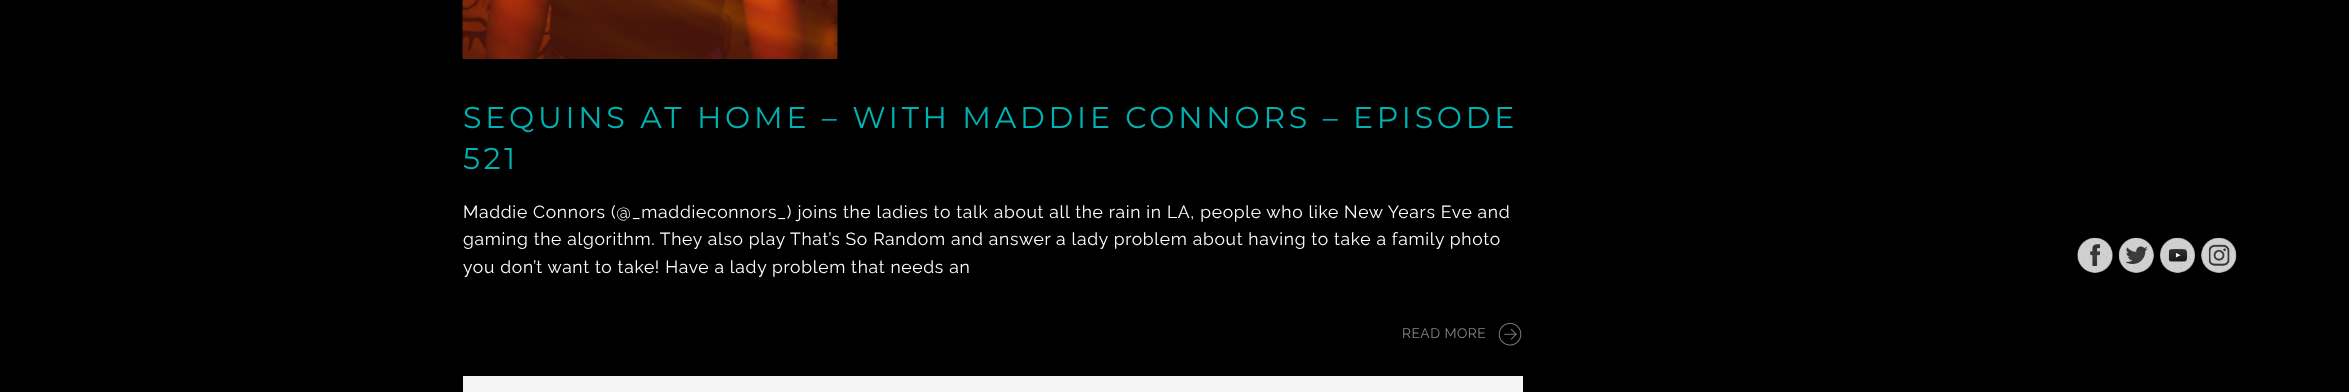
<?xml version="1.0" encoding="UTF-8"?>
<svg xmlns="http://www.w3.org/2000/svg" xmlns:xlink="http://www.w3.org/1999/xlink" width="2349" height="392">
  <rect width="100%" height="100%" fill="#000000" />
  <image x="462" y="0" width="376" height="59" xlink:href="image1.png" />
  <image x="1498" y="323" width="24" height="23" xlink:href="image2.png" />
  <rect x="463" y="376" width="1060" height="16" fill="#f5f5f5" />
  <image x="2077" y="237" width="36" height="36" xlink:href="image3.png" />
  <image x="2118" y="237" width="36" height="36" xlink:href="image4.png" />
  <image x="2160" y="237" width="35" height="36" xlink:href="image5.png" />
  <image x="2201" y="237" width="36" height="36" xlink:href="image6.png" />
  <text x="463" y="128" style="font-family: Montserrat; font-size: 30px; letter-spacing: 3.75px; fill: #00b2b2">SEQUINS AT HOME – WITH MADDIE CONNORS – EPISODE</text>
  <text x="463" y="169" style="font-family: Montserrat; font-size: 30px; letter-spacing: 3.75px; fill: #00b2b2">521</text>
  <text x="463" y="218" style="font-family: Raleway; font-size: 17.5px; letter-spacing: 0.7px; fill: #ffffff">Maddie Connors (@_maddieconnors_) joins the ladies to talk about all the rain in LA, people who like New Years Eve and</text>
  <text x="463" y="245" style="font-family: Raleway; font-size: 17.5px; letter-spacing: 0.7px; fill: #ffffff">gaming the algorithm. They also play That’s So Random and answer a lady problem about having to take a family photo</text>
  <text x="463" y="273" style="font-family: Raleway; font-size: 17.5px; letter-spacing: 0.7px; fill: #ffffff">you don’t want to take! Have a lady problem that needs an</text>
  <text x="1402" y="338" style="font-family: Raleway; font-size: 13.75px; letter-spacing: 0.5px; fill: #868686">READ MORE</text>
</svg>
